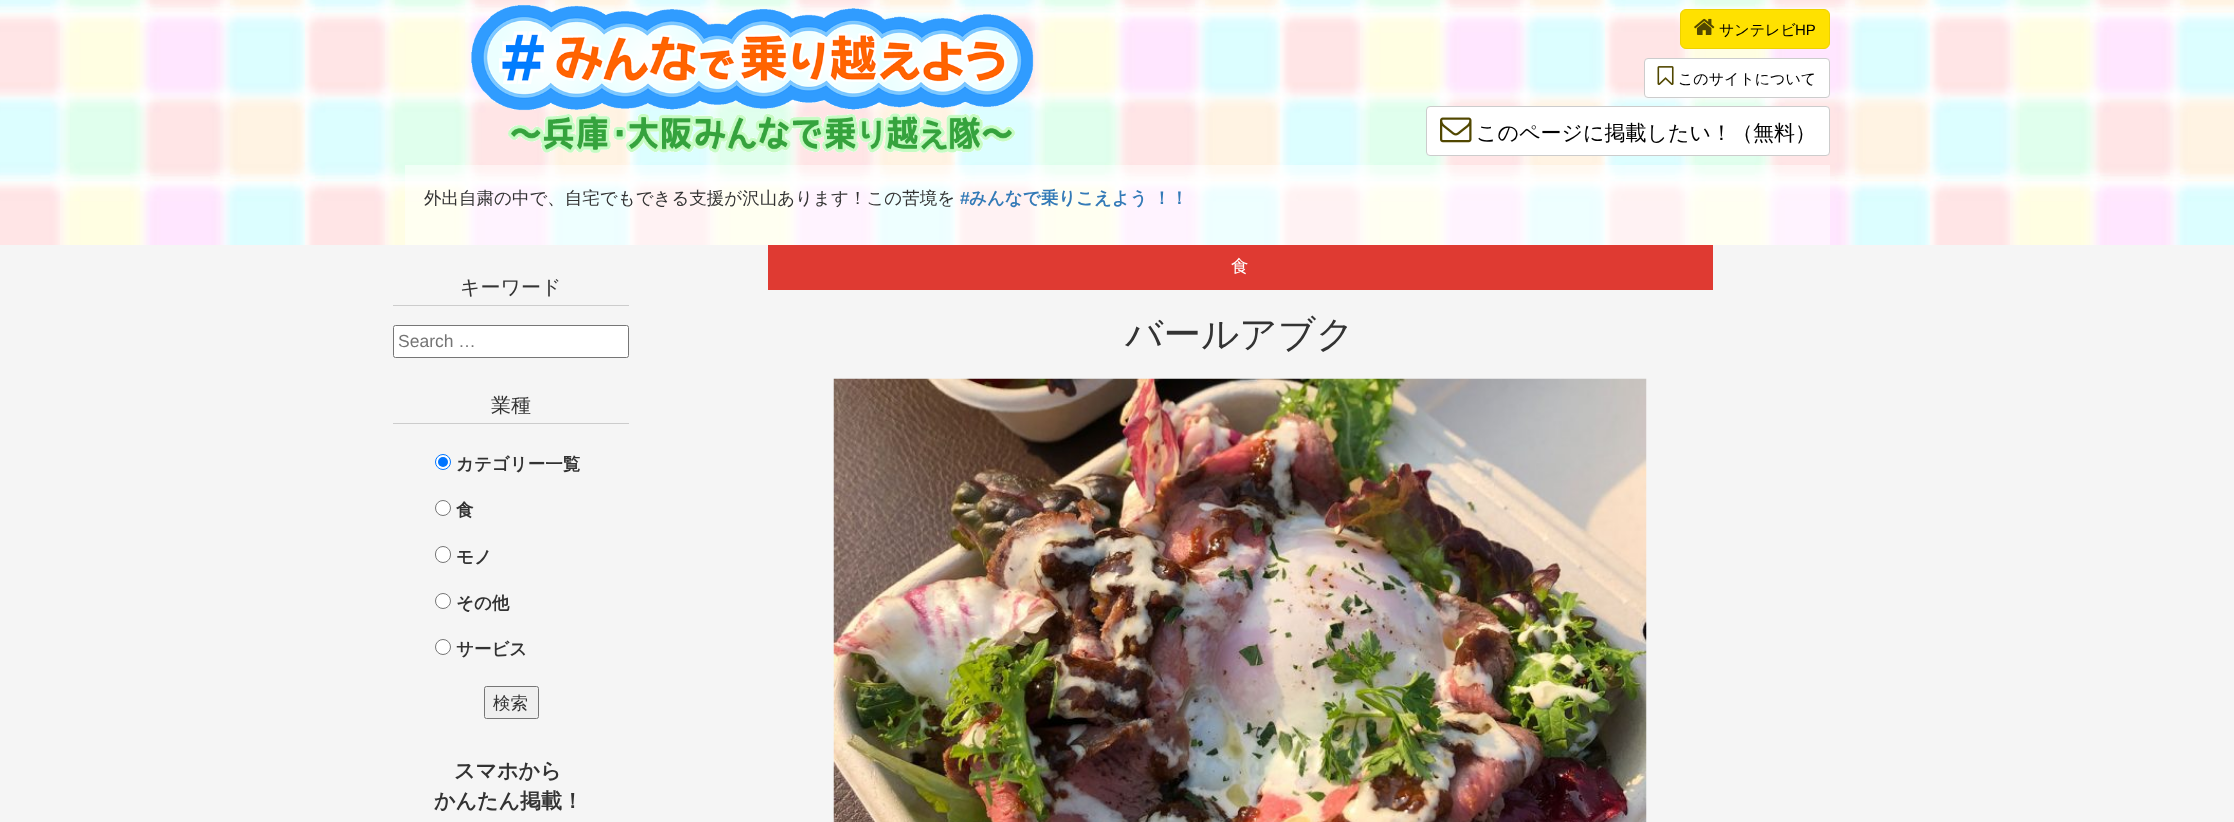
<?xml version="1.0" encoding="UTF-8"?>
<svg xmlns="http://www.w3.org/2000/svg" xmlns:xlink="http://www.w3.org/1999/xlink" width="2234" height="822">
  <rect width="100%" height="100%" fill="#f5f5f5" />
  <image x="0" y="0" width="2234" height="245" xlink:href="image1.png" />
  <image x="471" y="5" width="563" height="148" xlink:href="image2.png" />
  <rect x="1680.5" y="9.5" width="149" height="39" rx="5.5" fill="#ffe100" stroke="#edd100" />
  <image x="1694" y="18" width="21" height="17" xlink:href="image3.png" />
  <rect x="1644.5" y="58.5" width="185" height="39" rx="3.5" fill="#ffffff" stroke="#cccccc" />
  <image x="1657" y="66" width="17" height="19" xlink:href="image4.png" />
  <rect x="1426.5" y="106.5" width="403" height="49" rx="3.5" fill="#ffffff" stroke="#cccccc" />
  <image x="1440" y="117" width="32" height="26" xlink:href="image5.png" />
  <rect x="405" y="165" width="1425" height="80" fill="#ffffff" fill-opacity="0.5" />
  <rect x="393" y="305" width="236" height="1" fill="#cccccc" />
  <rect x="393.5" y="325.5" width="235" height="32" rx="2" fill="#ffffff" stroke="#767676" />
  <rect x="393" y="423" width="236" height="1" fill="#cccccc" />
  <circle cx="443" cy="462" r="7.5" fill="#ffffff" stroke="#0075ff" />
  <circle cx="443" cy="462" r="5" fill="#0075ff" />
  <circle cx="443" cy="508" r="7.5" fill="#ffffff" stroke="#767676" />
  <rect x="435.5" y="546.5" width="15" height="16" rx="7.5" fill="#ffffff" stroke="#767676" />
  <circle cx="443" cy="601" r="7.5" fill="#ffffff" stroke="#767676" />
  <circle cx="443" cy="647" r="7.5" fill="#ffffff" stroke="#767676" />
  <rect x="484.5" y="686.5" width="54" height="32" rx="2" fill="#efefef" stroke="#767676" />
  <rect x="768" y="245" width="945" height="45" fill="#df3a32" />
  <image x="833" y="378" width="814" height="444" xlink:href="image6.png" />
  <text x="1719" y="35" style="font-family: WenQuanYi Zen Hei; font-size: 15px; font-weight: 500; fill: #000000">サンテレビ</text>
  <text x="1795" y="35" style="font-family: Liberation Sans; font-size: 15px; fill: #000000">HP</text>
  <text x="1678" y="84" style="font-family: WenQuanYi Zen Hei; font-size: 15px; font-weight: 500; fill: #000000">このサイトについて</text>
  <text x="1476" y="140" style="font-family: WenQuanYi Zen Hei; font-size: 21px; font-weight: 500; fill: #000000">このページに掲載したい！（無料）</text>
  <text x="424" y="204" style="font-family: WenQuanYi Zen Hei; font-size: 17.5px; font-weight: 500; fill: #333333">外出自粛の中で、自宅でもできる支援が沢山あります！この苦境を</text>
  <text x="960" y="204" style="font-family: Liberation Sans; font-size: 17.5px; font-weight: bold; fill: #337ab7">#</text>
  <text x="969" y="204" style="font-family: WenQuanYi Zen Hei; font-size: 17.5px; font-weight: bold; fill: #337ab7">みんなで乗りこえよう ！！</text>
  <text x="460" y="294" style="font-family: WenQuanYi Zen Hei; font-size: 20px; font-weight: 500; fill: #333333">キーワード</text>
  <text x="398" y="347" style="font-family: Liberation Sans; font-size: 17.5px; fill: #757575">Search …</text>
  <text x="491" y="412" style="font-family: WenQuanYi Zen Hei; font-size: 20px; font-weight: 500; fill: #333333">業種</text>
  <text x="456" y="470" style="font-family: WenQuanYi Zen Hei; font-size: 17.5px; font-weight: bold; fill: #333333">カテゴリー一覧</text>
  <text x="456" y="516" style="font-family: WenQuanYi Zen Hei; font-size: 17.5px; font-weight: bold; fill: #333333">食</text>
  <text x="456" y="563" style="font-family: WenQuanYi Zen Hei; font-size: 17.5px; font-weight: bold; fill: #333333">モノ</text>
  <text x="456" y="609" style="font-family: WenQuanYi Zen Hei; font-size: 17.5px; font-weight: bold; fill: #333333">その他</text>
  <text x="456" y="655" style="font-family: WenQuanYi Zen Hei; font-size: 17.5px; font-weight: bold; fill: #333333">サービス</text>
  <text x="493" y="709" style="font-family: WenQuanYi Zen Hei; font-size: 17.5px; font-weight: 500; fill: #333333">検索</text>
  <text x="454" y="778" style="font-family: WenQuanYi Zen Hei; font-size: 21px; font-weight: bold; fill: #333333">スマホから</text>
  <text x="434" y="808" style="font-family: WenQuanYi Zen Hei; font-size: 21px; font-weight: bold; fill: #333333">かんたん掲載！</text>
  <text x="1231" y="272" style="font-family: WenQuanYi Zen Hei; font-size: 17.5px; font-weight: 500; fill: #ffffff">食</text>
  <text x="1125" y="347" style="font-family: WenQuanYi Zen Hei; font-size: 37.5px; font-weight: 500; fill: #333333">バールアブク</text>
</svg>
